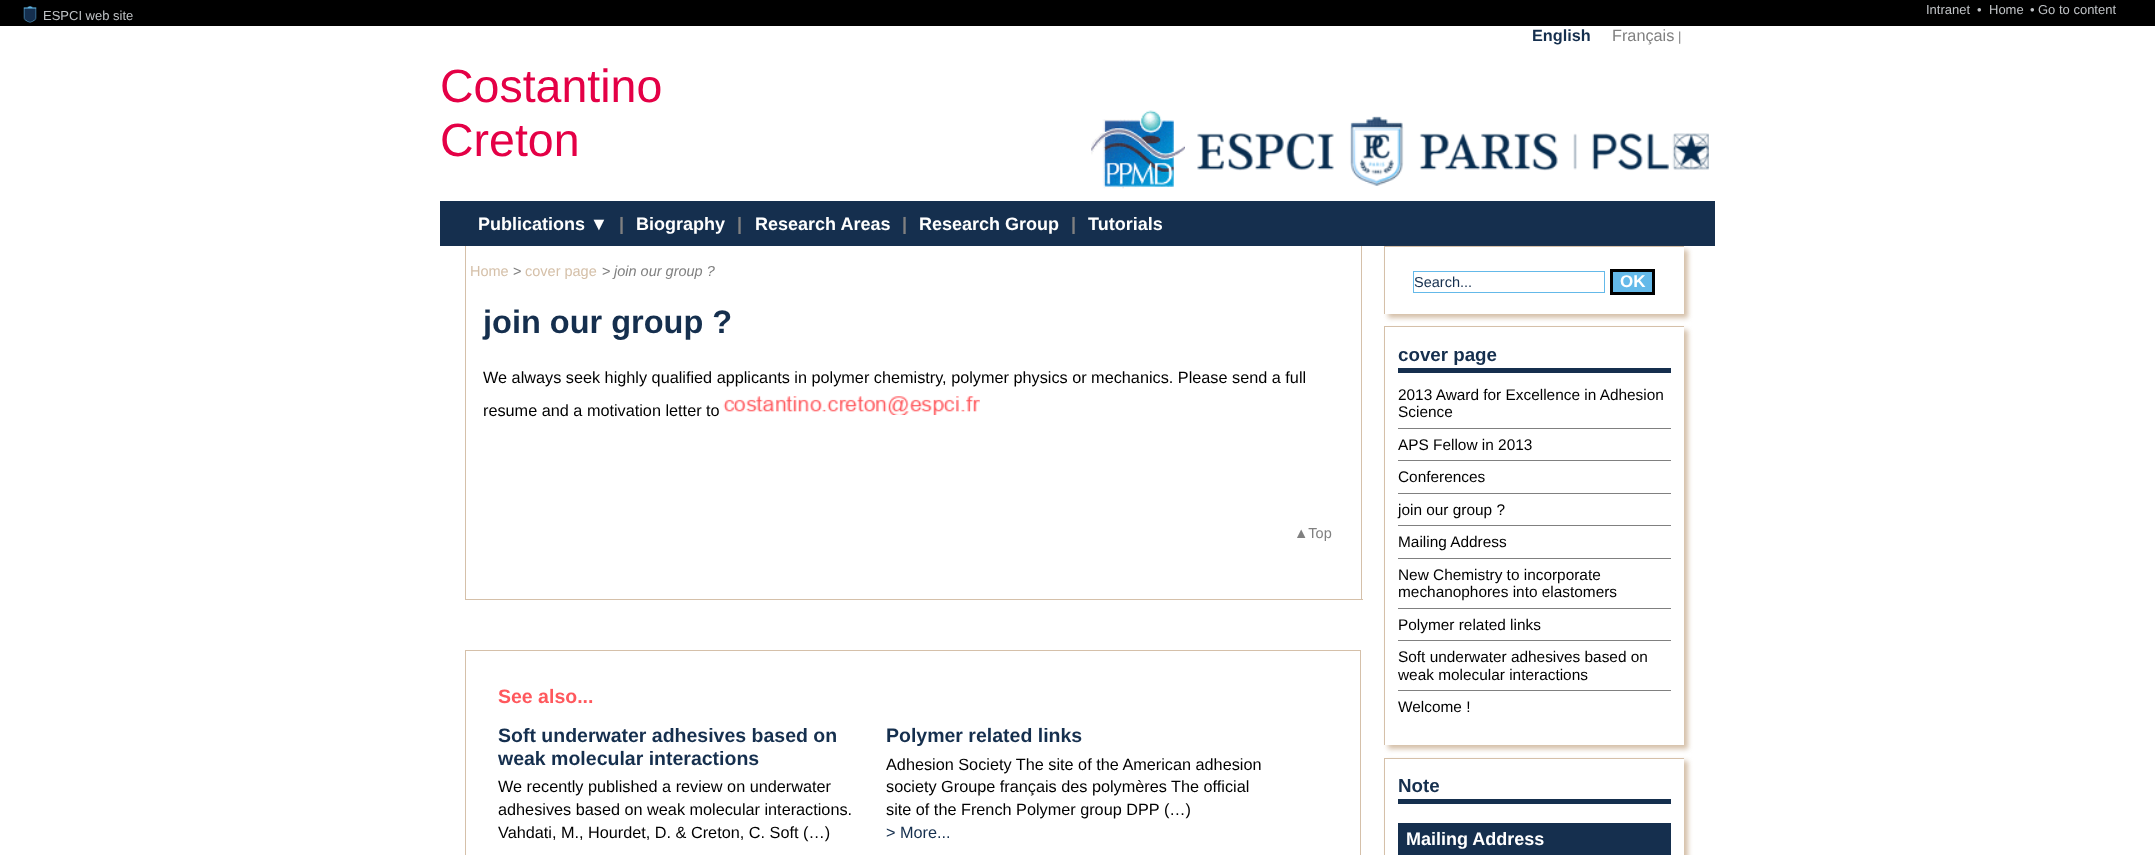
<?xml version="1.0" encoding="UTF-8"?>
<svg xmlns="http://www.w3.org/2000/svg" xmlns:xlink="http://www.w3.org/1999/xlink" width="2155" height="855">
  <rect width="100%" height="100%" fill="#ffffff" />
  <rect width="2155" height="26" fill="#000000" />
  <image x="23" y="6" width="14" height="17" xlink:href="image1.png" />
  <image x="1091" y="110" width="94" height="79" xlink:href="image2.png" />
  <image x="1197" y="116" width="512" height="70" xlink:href="image3.png" />
  <rect x="440" y="201" width="1275" height="45" fill="#152f4e" />
  <rect x="1361" y="246" width="1" height="354" fill="#d5c0a9" />
  <rect x="465" y="599" width="898" height="1" fill="#d5c0a9" />
  <rect x="465" y="246" width="1" height="354" fill="#d5c0a9" />
  <image x="723" y="396" width="257" height="19" xlink:href="image4.png" />
  <rect x="465.5" y="650.5" width="895" height="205" fill="none" stroke="#d5c0a9" />
  <rect x="1388" y="250" width="300" height="68" fill="#d5c0a9" filter="blur(2.5px)" />
  <rect x="1385" y="247" width="299" height="67" fill="#ffffff" />
  <rect x="1384" y="246" width="300" height="1" fill="#d5c0a9" />
  <rect x="1384" y="246" width="1" height="68" fill="#d5c0a9" />
  <rect x="1413.5" y="271.5" width="191" height="21" fill="none" stroke="#64b9e9" />
  <rect x="1611.5" y="270.5" width="42" height="23" fill="#64b9e9" stroke="#000000" stroke-width="3" />
  <rect x="1388" y="330" width="300" height="419" fill="#d5c0a9" filter="blur(2.5px)" />
  <rect x="1385" y="327" width="299" height="418" fill="#ffffff" />
  <rect x="1384" y="326" width="300" height="1" fill="#d5c0a9" />
  <rect x="1384" y="326" width="1" height="419" fill="#d5c0a9" />
  <rect x="1398" y="368" width="273" height="5" fill="#152f4e" />
  <rect x="1398" y="428" width="273" height="1" fill="#808080" />
  <rect x="1398" y="460" width="273" height="1" fill="#808080" />
  <rect x="1398" y="493" width="273" height="1" fill="#808080" />
  <rect x="1398" y="525" width="273" height="1" fill="#808080" />
  <rect x="1398" y="558" width="273" height="1" fill="#808080" />
  <rect x="1398" y="608" width="273" height="1" fill="#808080" />
  <rect x="1398" y="640" width="273" height="1" fill="#808080" />
  <rect x="1398" y="690" width="273" height="1" fill="#808080" />
  <rect x="1388" y="761" width="300" height="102" fill="#d5c0a9" filter="blur(2.5px)" />
  <rect x="1385" y="759" width="299" height="96" fill="#ffffff" />
  <rect x="1384" y="758" width="300" height="1" fill="#d5c0a9" />
  <rect x="1384" y="758" width="1" height="97" fill="#d5c0a9" />
  <rect x="1398" y="799" width="273" height="5" fill="#152f4e" />
  <rect x="1398" y="823" width="273" height="32" fill="#152f4e" />
  <text x="43" y="20" style="font-family: Liberation Sans; font-size: 13px; fill: #c0c3c6">ESPCI web site</text>
  <text x="1926" y="14" style="font-family: Liberation Sans; font-size: 13px; fill: #c0c3c6">Intranet</text>
  <text x="1977" y="14" style="font-family: Liberation Sans; font-size: 13px; fill: #c0c3c6">•</text>
  <text x="1989" y="14" style="font-family: Liberation Sans; font-size: 13px; fill: #c0c3c6">Home</text>
  <text x="2030" y="14" style="font-family: Liberation Sans; font-size: 13px; fill: #c0c3c6">•</text>
  <text x="2038" y="14" style="font-family: Liberation Sans; font-size: 13px; fill: #c0c3c6">Go to content</text>
  <text x="1532" y="41" style="font-family: Liberation Sans; font-size: 16.25px; font-weight: bold; fill: #152f4e">English</text>
  <text x="1612" y="41" style="font-family: Liberation Sans; font-size: 16.25px; fill: #808080">Français</text>
  <text x="1678" y="41" style="font-family: Liberation Sans; font-size: 13px; fill: #808080">|</text>
  <text x="440" y="102" style="font-family: Liberation Sans; font-size: 46.5px; fill: #e40046">Costantino</text>
  <text x="440" y="156" style="font-family: Liberation Sans; font-size: 46.5px; fill: #e40046">Creton</text>
  <text x="478" y="230" style="font-family: Liberation Sans; font-size: 18px; font-weight: bold; fill: #ffffff">Publications ▼</text>
  <text x="619" y="230" style="font-family: Liberation Sans; font-size: 18px; font-weight: bold; fill: #808080">|</text>
  <text x="636" y="230" style="font-family: Liberation Sans; font-size: 18px; font-weight: bold; fill: #ffffff">Biography</text>
  <text x="737" y="230" style="font-family: Liberation Sans; font-size: 18px; font-weight: bold; fill: #808080">|</text>
  <text x="755" y="230" style="font-family: Liberation Sans; font-size: 18px; font-weight: bold; fill: #ffffff">Research Areas</text>
  <text x="902" y="230" style="font-family: Liberation Sans; font-size: 18px; font-weight: bold; fill: #808080">|</text>
  <text x="919" y="230" style="font-family: Liberation Sans; font-size: 18px; font-weight: bold; fill: #ffffff">Research Group</text>
  <text x="1071" y="230" style="font-family: Liberation Sans; font-size: 18px; font-weight: bold; fill: #808080">|</text>
  <text x="1088" y="230" style="font-family: Liberation Sans; font-size: 18px; font-weight: bold; fill: #ffffff">Tutorials</text>
  <text x="470" y="276" style="font-family: Liberation Sans; font-size: 14.5px; fill: #d5c0a9">Home</text>
  <text x="513" y="276" style="font-family: Liberation Sans; font-size: 14.5px; fill: #808080">&gt;</text>
  <text x="525" y="276" style="font-family: Liberation Sans; font-size: 14.5px; fill: #d5c0a9">cover page</text>
  <text x="602" y="276" style="font-family: Liberation Sans; font-size: 14.5px; fill: #808080">&gt;</text>
  <text x="614" y="276" style="font-family: Liberation Sans; font-size: 14.5px; font-style: italic; fill: #808080">join our group ?</text>
  <text x="483" y="333" style="font-family: Liberation Sans; font-size: 32.5px; font-weight: bold; fill: #152f4e">join our group ?</text>
  <text x="483" y="383" style="font-family: Liberation Sans; font-size: 16.25px; fill: #000000">We always seek highly qualified applicants in polymer chemistry, polymer physics or mechanics. Please send a full</text>
  <text x="483" y="416" style="font-family: Liberation Sans; font-size: 16.25px; fill: #000000">resume and a motivation letter to</text>
  <text x="1294" y="538" style="font-family: Liberation Sans; font-size: 14.5px; fill: #808080">▲Top</text>
  <text x="498" y="703" style="font-family: Liberation Sans; font-size: 19.5px; font-weight: bold; fill: #ff585d">See also...</text>
  <text x="498" y="742" style="font-family: Liberation Sans; font-size: 19.5px; font-weight: bold; fill: #152f4e">Soft underwater adhesives based on</text>
  <text x="498" y="765" style="font-family: Liberation Sans; font-size: 19.5px; font-weight: bold; fill: #152f4e">weak molecular interactions</text>
  <text x="498" y="792" style="font-family: Liberation Sans; font-size: 16.25px; fill: #000000">We recently published a review on underwater</text>
  <text x="498" y="815" style="font-family: Liberation Sans; font-size: 16.25px; fill: #000000">adhesives based on weak molecular interactions.</text>
  <text x="498" y="838" style="font-family: Liberation Sans; font-size: 16.25px; fill: #000000">Vahdati, M., Hourdet, D. &amp; Creton, C. Soft (…)</text>
  <text x="886" y="742" style="font-family: Liberation Sans; font-size: 19.5px; font-weight: bold; fill: #152f4e">Polymer related links</text>
  <text x="886" y="770" style="font-family: Liberation Sans; font-size: 16.25px; fill: #000000">Adhesion Society The site of the American adhesion</text>
  <text x="886" y="792" style="font-family: Liberation Sans; font-size: 16.25px; fill: #000000">society Groupe français des polymères</text>
  <text x="1171" y="792" style="font-family: Liberation Sans; font-size: 16.25px; fill: #000000">The official</text>
  <text x="886" y="815" style="font-family: Liberation Sans; font-size: 16.25px; fill: #000000">site of the French Polymer group DPP (…)</text>
  <text x="886" y="838" style="font-family: Liberation Sans; font-size: 16.25px; fill: #152f4e">&gt; More...</text>
  <text x="1414" y="287" style="font-family: Liberation Sans; font-size: 14.5px; fill: #152f4e">Search...</text>
  <text x="1620" y="287" style="font-family: Liberation Sans; font-size: 17px; font-weight: bold; fill: #ffffff">OK</text>
  <text x="1398" y="361" style="font-family: Liberation Sans; font-size: 18.75px; font-weight: bold; fill: #152f4e">cover page</text>
  <text x="1398" y="400" style="font-family: Liberation Sans; font-size: 15.4px; fill: #000000">2013 Award for Excellence in Adhesion</text>
  <text x="1398" y="417" style="font-family: Liberation Sans; font-size: 15.4px; fill: #000000">Science</text>
  <text x="1398" y="450" style="font-family: Liberation Sans; font-size: 15.4px; fill: #000000">APS Fellow in 2013</text>
  <text x="1398" y="482" style="font-family: Liberation Sans; font-size: 15.4px; fill: #000000">Conferences</text>
  <text x="1398" y="515" style="font-family: Liberation Sans; font-size: 15.4px; fill: #000000">join our group ?</text>
  <text x="1398" y="547" style="font-family: Liberation Sans; font-size: 15.4px; fill: #000000">Mailing Address</text>
  <text x="1398" y="580" style="font-family: Liberation Sans; font-size: 15.4px; fill: #000000">New Chemistry to incorporate</text>
  <text x="1398" y="597" style="font-family: Liberation Sans; font-size: 15.4px; fill: #000000">mechanophores into elastomers</text>
  <text x="1398" y="630" style="font-family: Liberation Sans; font-size: 15.4px; fill: #000000">Polymer related links</text>
  <text x="1398" y="662" style="font-family: Liberation Sans; font-size: 15.4px; fill: #000000">Soft underwater adhesives based on</text>
  <text x="1398" y="680" style="font-family: Liberation Sans; font-size: 15.4px; fill: #000000">weak molecular interactions</text>
  <text x="1398" y="712" style="font-family: Liberation Sans; font-size: 15.4px; fill: #000000">Welcome !</text>
  <text x="1398" y="792" style="font-family: Liberation Sans; font-size: 18.75px; font-weight: bold; fill: #152f4e">Note</text>
  <text x="1406" y="845" style="font-family: Liberation Sans; font-size: 18px; font-weight: bold; fill: #ffffff">Mailing Address</text>
</svg>
